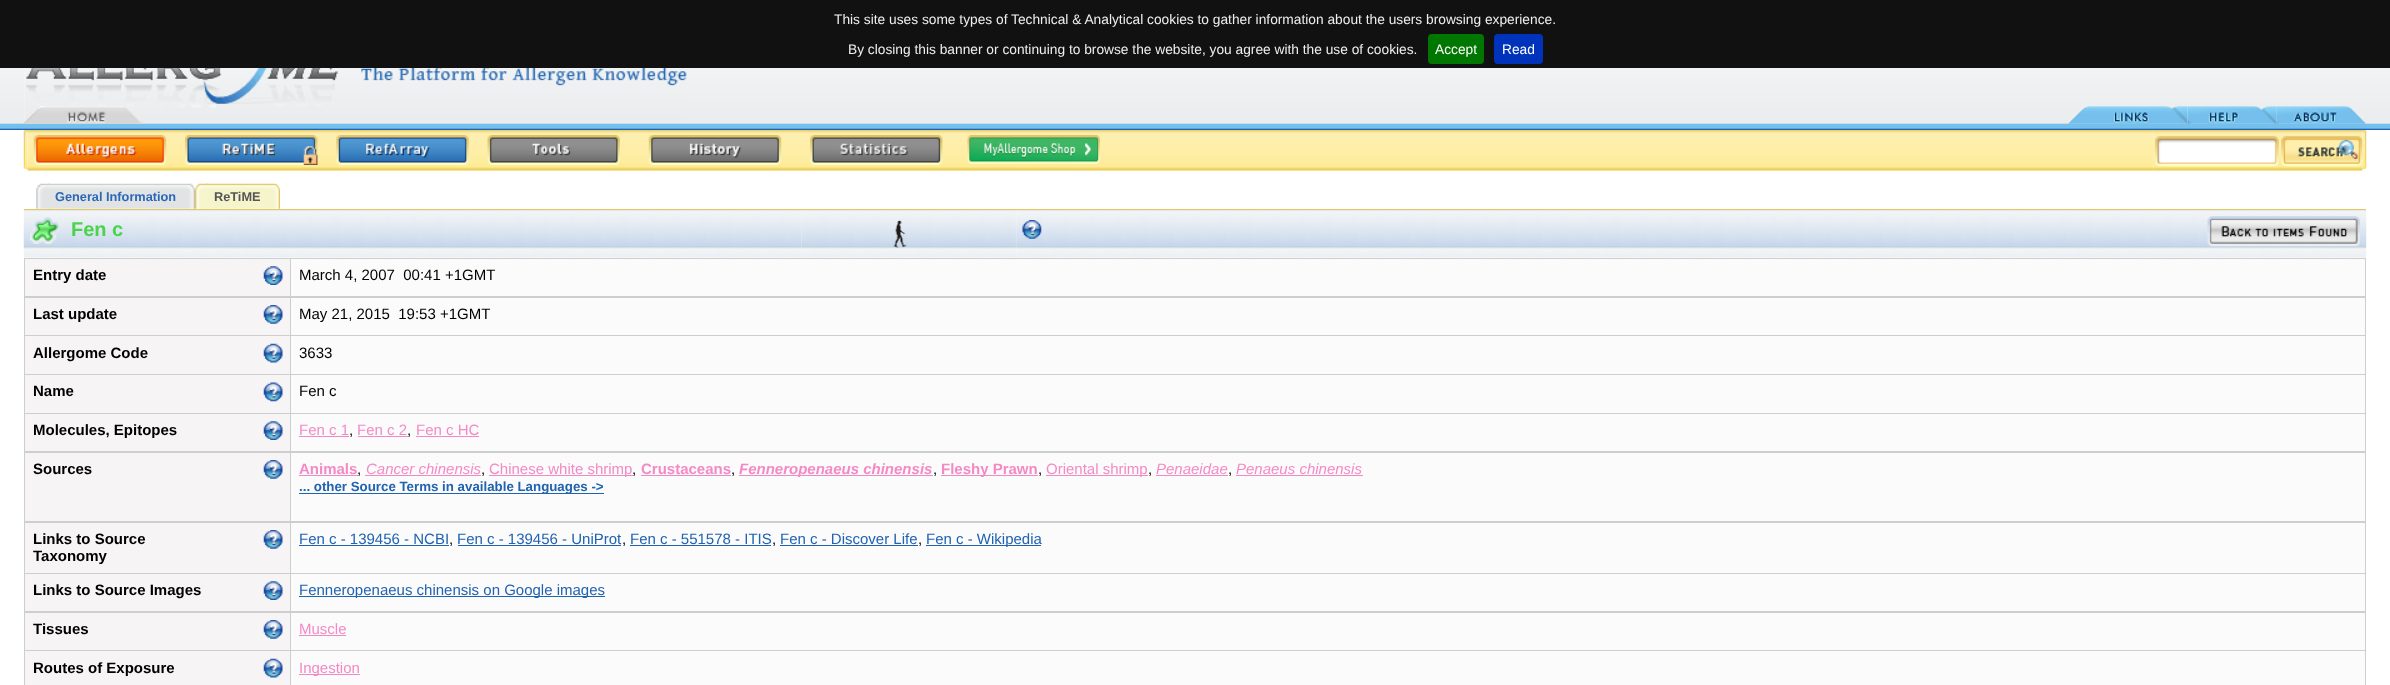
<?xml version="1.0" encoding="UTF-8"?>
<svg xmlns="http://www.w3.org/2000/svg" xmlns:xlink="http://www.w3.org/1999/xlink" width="2390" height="685">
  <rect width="100%" height="100%" fill="#ffffff" />
  <image x="0" y="68" width="2390" height="62" xlink:href="image1.png" />
  <rect width="2390" height="68" fill="#111111" />
  <rect x="1428" y="34" width="56" height="30" rx="4" fill="#007700" />
  <rect x="1494" y="34" width="49" height="30" rx="4" fill="#0033bb" />
  <image x="24" y="68" width="663" height="52" xlink:href="image2.png" />
  <image x="23" y="106" width="120" height="18" xlink:href="image3.png" />
  <image x="2068" y="106" width="120" height="18" xlink:href="image4.png" />
  <image x="2187" y="106" width="90" height="18" xlink:href="image5.png" />
  <image x="2276" y="106" width="90" height="18" xlink:href="image6.png" />
  <image x="27" y="130" width="2127" height="41" xlink:href="image8.png" />
  <image x="23" y="130" width="5" height="39" xlink:href="image7.png" />
  <image x="33" y="135" width="134" height="30" xlink:href="image9.png" />
  <image x="185" y="135" width="133" height="30" xlink:href="image10.png" />
  <image x="336" y="135" width="133" height="30" xlink:href="image11.png" />
  <image x="487" y="135" width="133" height="30" xlink:href="image12.png" />
  <image x="648" y="135" width="134" height="30" xlink:href="image13.png" />
  <image x="810" y="135" width="133" height="30" xlink:href="image14.png" />
  <image x="967" y="135" width="133" height="29" xlink:href="image15.png" />
  <image x="2153" y="130" width="210" height="41" xlink:href="image16.png" />
  <image x="2153" y="136" width="126" height="31" xlink:href="image17.png" />
  <image x="2281" y="136" width="82" height="31" xlink:href="image18.png" />
  <image x="2362" y="130" width="5" height="39" xlink:href="image19.png" />
  <rect x="24" y="209" width="2342" height="1" fill="#e2c763" />
  <image x="36" y="183" width="14" height="26" xlink:href="image20.png" />
  <image x="47" y="183" width="148" height="26" xlink:href="image21.png" />
  <image x="195" y="183" width="14" height="26" xlink:href="image22.png" />
  <image x="206" y="183" width="74" height="26" xlink:href="image23.png" />
  <rect x="24" y="210" width="2342" height="48" fill="#fcfbfb" />
  <image x="23" y="210" width="779" height="48" xlink:href="image24.png" />
  <image x="30" y="217" width="30" height="27" xlink:href="image25.png" />
  <image x="801" y="210" width="216" height="48" xlink:href="image26.png" />
  <image x="893" y="220" width="14" height="28" xlink:href="image27.png" />
  <image x="1016" y="210" width="1351" height="48" xlink:href="image28.png" />
  <image x="1022" y="220" width="20" height="19" xlink:href="image29.png" />
  <image x="2207" y="216" width="153" height="31" xlink:href="image30.png" />
  <rect x="24" y="258" width="2342" height="427" fill="#cecece" />
  <rect x="25" y="259" width="265" height="37" fill="#f6f4f4" />
  <image x="263" y="266" width="20" height="19" xlink:href="image31.png" />
  <rect x="291" y="259" width="2074" height="37" fill="#fcfbfb" />
  <rect x="25" y="298" width="265" height="37" fill="#f6f4f4" />
  <image x="263" y="305" width="20" height="19" xlink:href="image32.png" />
  <rect x="291" y="298" width="2074" height="37" fill="#fcfbfb" />
  <rect x="25" y="336" width="265" height="38" fill="#f6f4f4" />
  <image x="263" y="343" width="20" height="20" xlink:href="image33.png" />
  <rect x="291" y="336" width="2074" height="38" fill="#fcfbfb" />
  <rect x="25" y="375" width="265" height="38" fill="#f6f4f4" />
  <image x="263" y="382" width="20" height="20" xlink:href="image34.png" />
  <rect x="291" y="375" width="2074" height="38" fill="#fcfbfb" />
  <rect x="25" y="414" width="265" height="37" fill="#f6f4f4" />
  <image x="263" y="421" width="20" height="19" xlink:href="image31.png" />
  <rect x="291" y="414" width="2074" height="37" fill="#fcfbfb" />
  <rect x="299" y="436" width="50" height="1" fill="#f38ac6" />
  <rect x="358" y="436" width="50" height="1" fill="#f38ac6" />
  <rect x="416" y="436" width="63" height="1" fill="#f38ac6" />
  <rect x="25" y="453" width="265" height="68" fill="#f6f4f4" />
  <image x="263" y="460" width="20" height="19" xlink:href="image32.png" />
  <rect x="291" y="453" width="2074" height="68" fill="#fcfbfb" />
  <rect x="299" y="475" width="59" height="1" fill="#f38ac6" />
  <rect x="365" y="475" width="116" height="1" fill="#f38ac6" />
  <rect x="489" y="475" width="144" height="1" fill="#f38ac6" />
  <rect x="641" y="475" width="90" height="1" fill="#f38ac6" />
  <rect x="739" y="475" width="194" height="1" fill="#f38ac6" />
  <rect x="941" y="475" width="97" height="1" fill="#f38ac6" />
  <rect x="1046" y="475" width="102" height="1" fill="#f38ac6" />
  <rect x="1156" y="475" width="72" height="1" fill="#f38ac6" />
  <rect x="1236" y="475" width="127" height="1" fill="#f38ac6" />
  <rect x="299" y="493" width="305" height="1" fill="#2063b0" />
  <rect x="25" y="523" width="265" height="50" fill="#f6f4f4" />
  <image x="263" y="530" width="20" height="19" xlink:href="image32.png" />
  <rect x="291" y="523" width="2074" height="50" fill="#fcfbfb" />
  <rect x="299" y="545" width="150" height="1" fill="#2063b0" />
  <rect x="458" y="545" width="163" height="1" fill="#2063b0" />
  <rect x="630" y="545" width="141" height="1" fill="#2063b0" />
  <rect x="780" y="545" width="138" height="1" fill="#2063b0" />
  <rect x="926" y="545" width="115" height="1" fill="#2063b0" />
  <rect x="25" y="574" width="265" height="37" fill="#f6f4f4" />
  <image x="263" y="581" width="20" height="19" xlink:href="image35.png" />
  <rect x="291" y="574" width="2074" height="37" fill="#fcfbfb" />
  <rect x="299" y="596" width="306" height="1" fill="#2063b0" />
  <rect x="25" y="613" width="265" height="37" fill="#f6f4f4" />
  <image x="263" y="620" width="20" height="19" xlink:href="image32.png" />
  <rect x="291" y="613" width="2074" height="37" fill="#fcfbfb" />
  <rect x="299" y="635" width="47" height="1" fill="#f38ac6" />
  <rect x="25" y="651" width="265" height="34" fill="#f6f4f4" />
  <image x="263" y="658" width="20" height="20" xlink:href="image33.png" />
  <rect x="291" y="651" width="2074" height="34" fill="#fcfbfb" />
  <rect x="299" y="674" width="61" height="1" fill="#f38ac6" />
  <text x="834" y="24" style="font-family: Liberation Sans; font-size: 13.75px; fill: #eeeeee">This site uses some types of Technical &amp; Analytical cookies to gather information about the users browsing experience.</text>
  <text x="848" y="54" style="font-family: Liberation Sans; font-size: 13.75px; fill: #eeeeee">By closing this banner or continuing to browse the website, you agree with the use of cookies.</text>
  <text x="1435" y="54" style="font-family: Liberation Sans; font-size: 13.75px; fill: #ffffff">Accept</text>
  <text x="1502" y="54" style="font-family: Liberation Sans; font-size: 13.75px; fill: #ffffff">Read</text>
  <text x="55" y="201" style="font-family: Liberation Sans; font-size: 12.75px; font-weight: bold; fill: #2b68b7">General Information</text>
  <text x="214" y="201" style="font-family: Liberation Sans; font-size: 12.75px; font-weight: bold; fill: #565657">ReTiME</text>
  <text x="71" y="236" style="font-family: Liberation Sans; font-size: 20px; font-weight: bold; fill: #4cd34d">Fen c</text>
  <text x="33" y="280" style="font-family: Liberation Sans; font-size: 15px; font-weight: bold; fill: #000000">Entry date</text>
  <text x="299" y="280" style="font-family: Liberation Sans; font-size: 15px; fill: #000000" xml:space="preserve">March 4, 2007  00:41 +1GMT</text>
  <text x="33" y="319" style="font-family: Liberation Sans; font-size: 15px; font-weight: bold; fill: #000000">Last update</text>
  <text x="299" y="319" style="font-family: Liberation Sans; font-size: 15px; fill: #000000" xml:space="preserve">May 21, 2015  19:53 +1GMT</text>
  <text x="33" y="358" style="font-family: Liberation Sans; font-size: 15px; font-weight: bold; fill: #000000">Allergome Code</text>
  <text x="299" y="358" style="font-family: Liberation Sans; font-size: 15px; fill: #000000">3633</text>
  <text x="33" y="396" style="font-family: Liberation Sans; font-size: 15px; font-weight: bold; fill: #000000">Name</text>
  <text x="299" y="396" style="font-family: Liberation Sans; font-size: 15px; fill: #000000">Fen c</text>
  <text x="33" y="435" style="font-family: Liberation Sans; font-size: 15px; font-weight: bold; fill: #000000">Molecules, Epitopes</text>
  <text x="299" y="435" style="font-family: Liberation Sans; font-size: 15px; fill: #f38ac6">Fen c 1</text>
  <text x="349" y="435" style="font-family: Liberation Sans; font-size: 15px; fill: #000000">,</text>
  <text x="357" y="435" style="font-family: Liberation Sans; font-size: 15px; fill: #f38ac6">Fen c 2</text>
  <text x="407" y="435" style="font-family: Liberation Sans; font-size: 15px; fill: #000000">,</text>
  <text x="416" y="435" style="font-family: Liberation Sans; font-size: 15px; fill: #f38ac6">Fen c HC</text>
  <text x="33" y="474" style="font-family: Liberation Sans; font-size: 15px; font-weight: bold; fill: #000000">Sources</text>
  <text x="299" y="474" style="font-family: Liberation Sans; font-size: 15px; font-weight: bold; fill: #f38ac6">Animals</text>
  <text x="357" y="474" style="font-family: Liberation Sans; font-size: 15px; fill: #000000">,</text>
  <text x="366" y="474" style="font-family: Liberation Sans; font-size: 15px; font-style: italic; fill: #f38ac6">Cancer chinensis</text>
  <text x="481" y="474" style="font-family: Liberation Sans; font-size: 15px; fill: #000000">,</text>
  <text x="489" y="474" style="font-family: Liberation Sans; font-size: 15px; fill: #f38ac6">Chinese white shrimp</text>
  <text x="632" y="474" style="font-family: Liberation Sans; font-size: 15px; fill: #000000">,</text>
  <text x="641" y="474" style="font-family: Liberation Sans; font-size: 15px; font-weight: bold; fill: #f38ac6">Crustaceans</text>
  <text x="731" y="474" style="font-family: Liberation Sans; font-size: 15px; fill: #000000">,</text>
  <text x="739" y="474" style="font-family: Liberation Sans; font-size: 15px; font-weight: bold; font-style: italic; fill: #f38ac6">Fenneropenaeus chinensis</text>
  <text x="933" y="474" style="font-family: Liberation Sans; font-size: 15px; fill: #000000">,</text>
  <text x="941" y="474" style="font-family: Liberation Sans; font-size: 15px; font-weight: bold; fill: #f38ac6">Fleshy Prawn</text>
  <text x="1038" y="474" style="font-family: Liberation Sans; font-size: 15px; fill: #000000">,</text>
  <text x="1046" y="474" style="font-family: Liberation Sans; font-size: 15px; fill: #f38ac6">Oriental shrimp</text>
  <text x="1148" y="474" style="font-family: Liberation Sans; font-size: 15px; fill: #000000">,</text>
  <text x="1156" y="474" style="font-family: Liberation Sans; font-size: 15px; font-style: italic; fill: #f38ac6">Penaeidae</text>
  <text x="1228" y="474" style="font-family: Liberation Sans; font-size: 15px; fill: #000000">,</text>
  <text x="1236" y="474" style="font-family: Liberation Sans; font-size: 15px; font-style: italic; fill: #f38ac6">Penaeus chinensis</text>
  <text x="299" y="491" style="font-family: Liberation Sans; font-size: 13.3px; font-weight: bold; fill: #2063b0">... other Source Terms in available Languages -&gt;</text>
  <text x="33" y="544" style="font-family: Liberation Sans; font-size: 15px; font-weight: bold; fill: #000000">Links to Source</text>
  <text x="33" y="561" style="font-family: Liberation Sans; font-size: 15px; font-weight: bold; fill: #000000">Taxonomy</text>
  <text x="299" y="544" style="font-family: Liberation Sans; font-size: 15px; fill: #2063b0">Fen c - 139456 - NCBI</text>
  <text x="449" y="544" style="font-family: Liberation Sans; font-size: 15px; fill: #000000">,</text>
  <text x="457" y="544" style="font-family: Liberation Sans; font-size: 15px; fill: #2063b0">Fen c - 139456 - UniProt</text>
  <text x="622" y="544" style="font-family: Liberation Sans; font-size: 15px; fill: #000000">,</text>
  <text x="630" y="544" style="font-family: Liberation Sans; font-size: 15px; fill: #2063b0">Fen c - 551578 - ITIS</text>
  <text x="772" y="544" style="font-family: Liberation Sans; font-size: 15px; fill: #000000">,</text>
  <text x="780" y="544" style="font-family: Liberation Sans; font-size: 15px; fill: #2063b0">Fen c - Discover Life</text>
  <text x="918" y="544" style="font-family: Liberation Sans; font-size: 15px; fill: #000000">,</text>
  <text x="926" y="544" style="font-family: Liberation Sans; font-size: 15px; fill: #2063b0">Fen c - Wikipedia</text>
  <text x="33" y="595" style="font-family: Liberation Sans; font-size: 15px; font-weight: bold; fill: #000000">Links to Source Images</text>
  <text x="299" y="595" style="font-family: Liberation Sans; font-size: 15px; fill: #2063b0">Fenneropenaeus chinensis on Google images</text>
  <text x="33" y="634" style="font-family: Liberation Sans; font-size: 15px; font-weight: bold; fill: #000000">Tissues</text>
  <text x="299" y="634" style="font-family: Liberation Sans; font-size: 15px; fill: #f38ac6">Muscle</text>
  <text x="33" y="673" style="font-family: Liberation Sans; font-size: 15px; font-weight: bold; fill: #000000">Routes of Exposure</text>
  <text x="299" y="673" style="font-family: Liberation Sans; font-size: 15px; fill: #f38ac6">Ingestion</text>
</svg>
